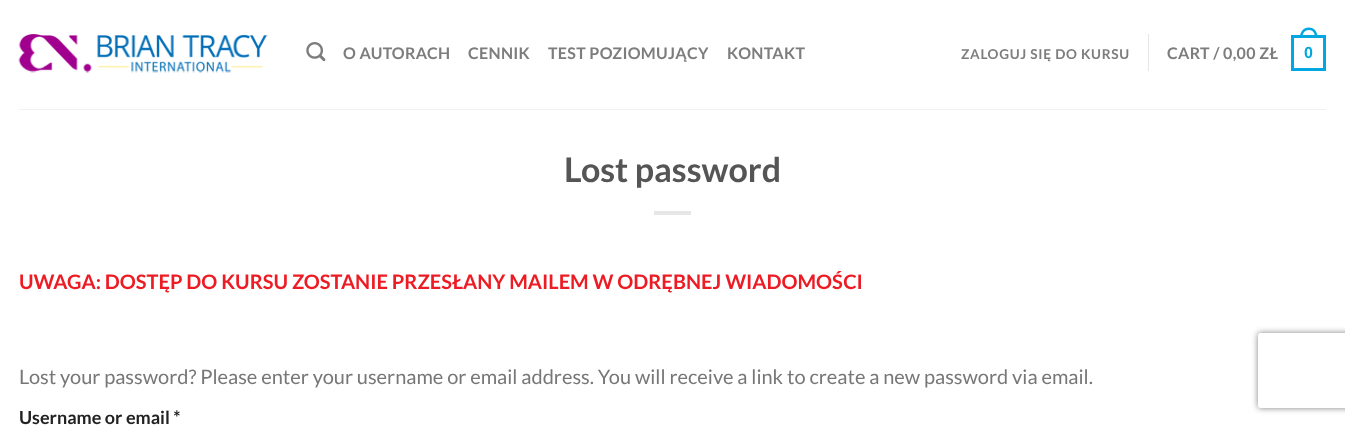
<?xml version="1.0" encoding="UTF-8"?>
<svg xmlns="http://www.w3.org/2000/svg" xmlns:xlink="http://www.w3.org/1999/xlink" width="1345" height="425">
  <defs>
    <clipPath id="clip1"><path d="M 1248 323 h 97 v 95 h -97 z m 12.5 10 h 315 c 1.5 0 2.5 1 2.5 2.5 v 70 c 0 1.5 -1 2.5 -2.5 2.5 h -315 c -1.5 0 -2.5 -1 -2.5 -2.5 v -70 c 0 -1.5 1 -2.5 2.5 -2.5 z" clip-rule="evenodd" /></clipPath>
  </defs>
  <rect width="100%" height="100%" fill="#ffffff" />
  <image x="18" y="34" width="250" height="39" xlink:href="image1.png" />
  <image x="306" y="42" width="20" height="20" xlink:href="image2.png" />
  <rect x="1148" y="34" width="1" height="37" fill="#e6e6e6" />
  <rect x="1292.5" y="36.5" width="32" height="33" fill="none" stroke="#00a7e1" stroke-width="3" />
  <path d="M 1309 27.5 c 5.5 0 8.5 4.5 8.5 10 h -17.5 c 0 -5.5 3 -10 9 -10 z m 0 2.5 c 4 0 6 3.5 6 7.5 h -12.5 c 0 -4 2 -7.5 6.5 -7.5 z" fill="#00a7e1" fill-rule="evenodd" />
  <rect x="19" y="109" width="1307" height="1" fill="#f1f1f1" />
  <rect x="654" y="211" width="37" height="4" fill="#e6e6e6" />
  <g clip-path="url(#clip1)">
    <rect x="1258" y="333" width="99" height="75" rx="2.5" fill="#808080" filter="blur(3px)" />
  </g>
  <text x="343" y="59" style="font-family: Lato; font-size: 16px; font-weight: bold; letter-spacing: 0.3px; fill: #7d7d7d">O AUTORACH</text>
  <text x="468" y="59" style="font-family: Lato; font-size: 16px; font-weight: bold; letter-spacing: 0.3px; fill: #7d7d7d">CENNIK</text>
  <text x="548" y="59" style="font-family: Lato; font-size: 16px; font-weight: bold; letter-spacing: 0.3px; fill: #7d7d7d">TEST POZIOMUJĄCY</text>
  <text x="727" y="59" style="font-family: Lato; font-size: 16px; font-weight: bold; letter-spacing: 0.3px; fill: #7d7d7d">KONTAKT</text>
  <text x="961" y="59" style="font-family: Lato; font-size: 13.6px; font-weight: bold; letter-spacing: 0.7px; fill: #7d7d7d">ZALOGUJ SIĘ DO KURSU</text>
  <text x="1167" y="59" style="font-family: Lato; font-size: 16px; font-weight: bold; letter-spacing: 0.3px; fill: #7d7d7d">CART / 0,00 ZŁ</text>
  <text x="1304" y="58" style="font-family: Liberation Sans; font-size: 16px; font-weight: bold; letter-spacing: 0.3px; fill: #00a7e1">0</text>
  <text x="564" y="182" style="font-family: Lato; font-size: 34px; font-weight: bold; fill: #555555">Lost password</text>
  <text x="19" y="289" style="font-family: Lato; font-size: 20px; font-weight: bold; fill: #ed1c24">UWAGA: DOSTĘP DO KURSU ZOSTANIE PRZESŁANY MAILEM W ODRĘBNEJ WIADOMOŚCI</text>
  <text x="19" y="384" style="font-family: Lato; font-size: 20px; fill: #777777">Lost your password? Please enter your username or email address. You will receive a link to create a new password via email.</text>
  <text x="19" y="424" style="font-family: Lato; font-size: 18px; font-weight: bold; fill: #222222">Username or email *</text>
</svg>
